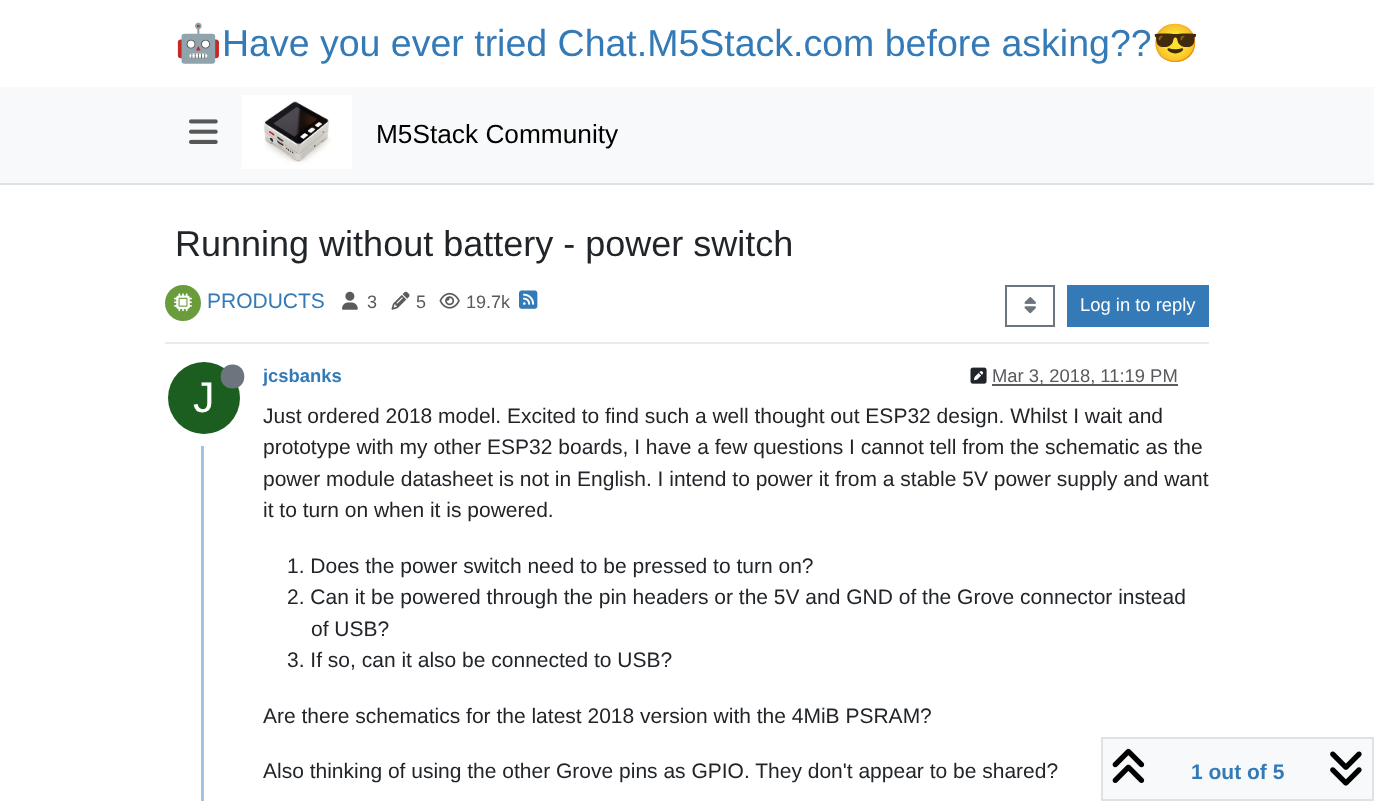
<?xml version="1.0" encoding="UTF-8"?>
<svg xmlns="http://www.w3.org/2000/svg" xmlns:xlink="http://www.w3.org/1999/xlink" width="1374" height="801">
  <rect width="100%" height="100%" fill="#ffffff" />
  <rect y="87" width="1374" height="96" fill="#f8f9fa" />
  <rect y="183" width="1374" height="2" fill="#dee2e6" />
  <image x="189" y="119" width="29" height="25" xlink:href="image1.png" />
  <image x="242" y="95" width="110" height="74" xlink:href="image2.png" />
  <rect x="165" y="342" width="1044" height="2" fill="#e9ecef" />
  <circle cx="183" cy="303" r="18" fill="#6a9c3b" />
  <image x="174" y="293" width="18" height="19" xlink:href="image3.png" />
  <image x="342" y="291" width="16" height="19" xlink:href="image4.png" />
  <image x="391" y="291" width="19" height="19" xlink:href="image5.png" />
  <image x="439" y="292" width="21" height="17" xlink:href="image6.png" />
  <image x="519" y="290" width="19" height="19" xlink:href="image7.png" />
  <rect x="1006" y="286" width="48" height="40" fill="none" stroke="#6c757d" stroke-width="2" />
  <image x="1024" y="297" width="12" height="17" xlink:href="image8.png" />
  <rect x="1067" y="285" width="142" height="42" fill="#337ab7" />
  <rect x="201" y="359" width="3" height="442" fill="#a0c4e4" />
  <image x="970" y="367" width="17" height="17" xlink:href="image9.png" />
  <rect x="992" y="384" width="186" height="2" fill="#595c5f" />
  <circle cx="204" cy="398" r="42" fill="none" stroke="#ffffff" stroke-width="12" />
  <circle cx="204" cy="398" r="36" fill="#1b5e20" />
  <path d="M 232.5 388.5 c 16 0 15.5 -24 0 -24 c -15.5 0 -16 24 0 24 z" fill="#6c757d" />
  <rect x="1102" y="738" width="271" height="62" fill="#f8f9fa" stroke="#dee2e6" stroke-width="2" />
  <image x="1112" y="748" width="33" height="35" xlink:href="image10.png" />
  <image x="1330" y="751" width="32" height="35" xlink:href="image11.png" />
  <text x="175" y="56" style="font-family: Noto Color Emoji; font-size: 37.5px; fill: #337ab7">🤖</text>
  <text x="222" y="56" style="font-family: Liberation Sans; font-size: 37.5px; fill: #337ab7">Have you ever tried Chat.M5Stack.com before asking??</text>
  <text x="1152" y="56" style="font-family: Noto Color Emoji; font-size: 37.5px; fill: #337ab7">😎</text>
  <text x="376" y="143" style="font-family: Liberation Sans; font-size: 26.25px; fill: #000000">M5Stack Community</text>
  <text x="175" y="256" style="font-family: Liberation Sans; font-size: 36px; fill: #212529">Running without battery - power switch</text>
  <text x="207" y="308" style="font-family: Liberation Sans; font-size: 21px; fill: #337ab7">PRODUCTS</text>
  <text x="367" y="308" style="font-family: Liberation Sans; font-size: 18px; fill: #585b5e">3</text>
  <text x="416" y="308" style="font-family: Liberation Sans; font-size: 18px; fill: #585b5e">5</text>
  <text x="466" y="308" style="font-family: Liberation Sans; font-size: 18px; fill: #585b5e">19.7k</text>
  <text x="1080" y="311" style="font-family: Liberation Sans; font-size: 18.4px; fill: #ffffff">Log in to reply</text>
  <text x="263" y="382" style="font-family: Liberation Sans; font-size: 18.4px; font-weight: bold; fill: #337ab7">jcsbanks</text>
  <text x="992" y="382" style="font-family: Liberation Sans; font-size: 18.4px; fill: #585b5e">Mar 3, 2018, 11:19 PM</text>
  <text x="193" y="412" style="font-family: Liberation Sans; font-size: 43px; fill: #ffffff">J</text>
  <text x="263" y="423" style="font-family: Liberation Sans; font-size: 21px; fill: #212529">Just ordered 2018 model. Excited to find such a well thought out ESP32 design. Whilst I wait and</text>
  <text x="263" y="454" style="font-family: Liberation Sans; font-size: 21px; fill: #212529">prototype with my other ESP32 boards, I have a few questions I cannot tell from the schematic as the</text>
  <text x="263" y="486" style="font-family: Liberation Sans; font-size: 21px; fill: #212529">power module datasheet is not in English. I intend to power it from a stable 5V power supply and want</text>
  <text x="263" y="517" style="font-family: Liberation Sans; font-size: 21px; fill: #212529">it to turn on when it is powered.</text>
  <text x="287" y="573" style="font-family: Liberation Sans; font-size: 21px; fill: #212529">1. Does the power switch need to be pressed to turn on?</text>
  <text x="287" y="604" style="font-family: Liberation Sans; font-size: 21px; fill: #212529">2. Can it be powered through the pin headers or the 5V and GND of the Grove connector instead</text>
  <text x="311" y="636" style="font-family: Liberation Sans; font-size: 21px; fill: #212529">of USB?</text>
  <text x="287" y="667" style="font-family: Liberation Sans; font-size: 21px; fill: #212529">3. If so, can it also be connected to USB?</text>
  <text x="263" y="723" style="font-family: Liberation Sans; font-size: 21px; fill: #212529">Are there schematics for the latest 2018 version with the 4MiB PSRAM?</text>
  <text x="263" y="778" style="font-family: Liberation Sans; font-size: 21px; fill: #212529">Also thinking of using the other Grove pins as GPIO. They don't appear to be shared?</text>
  <text x="1191" y="779" style="font-family: Liberation Sans; font-size: 21px; font-weight: bold; fill: #337ab7">1 out of 5</text>
</svg>
